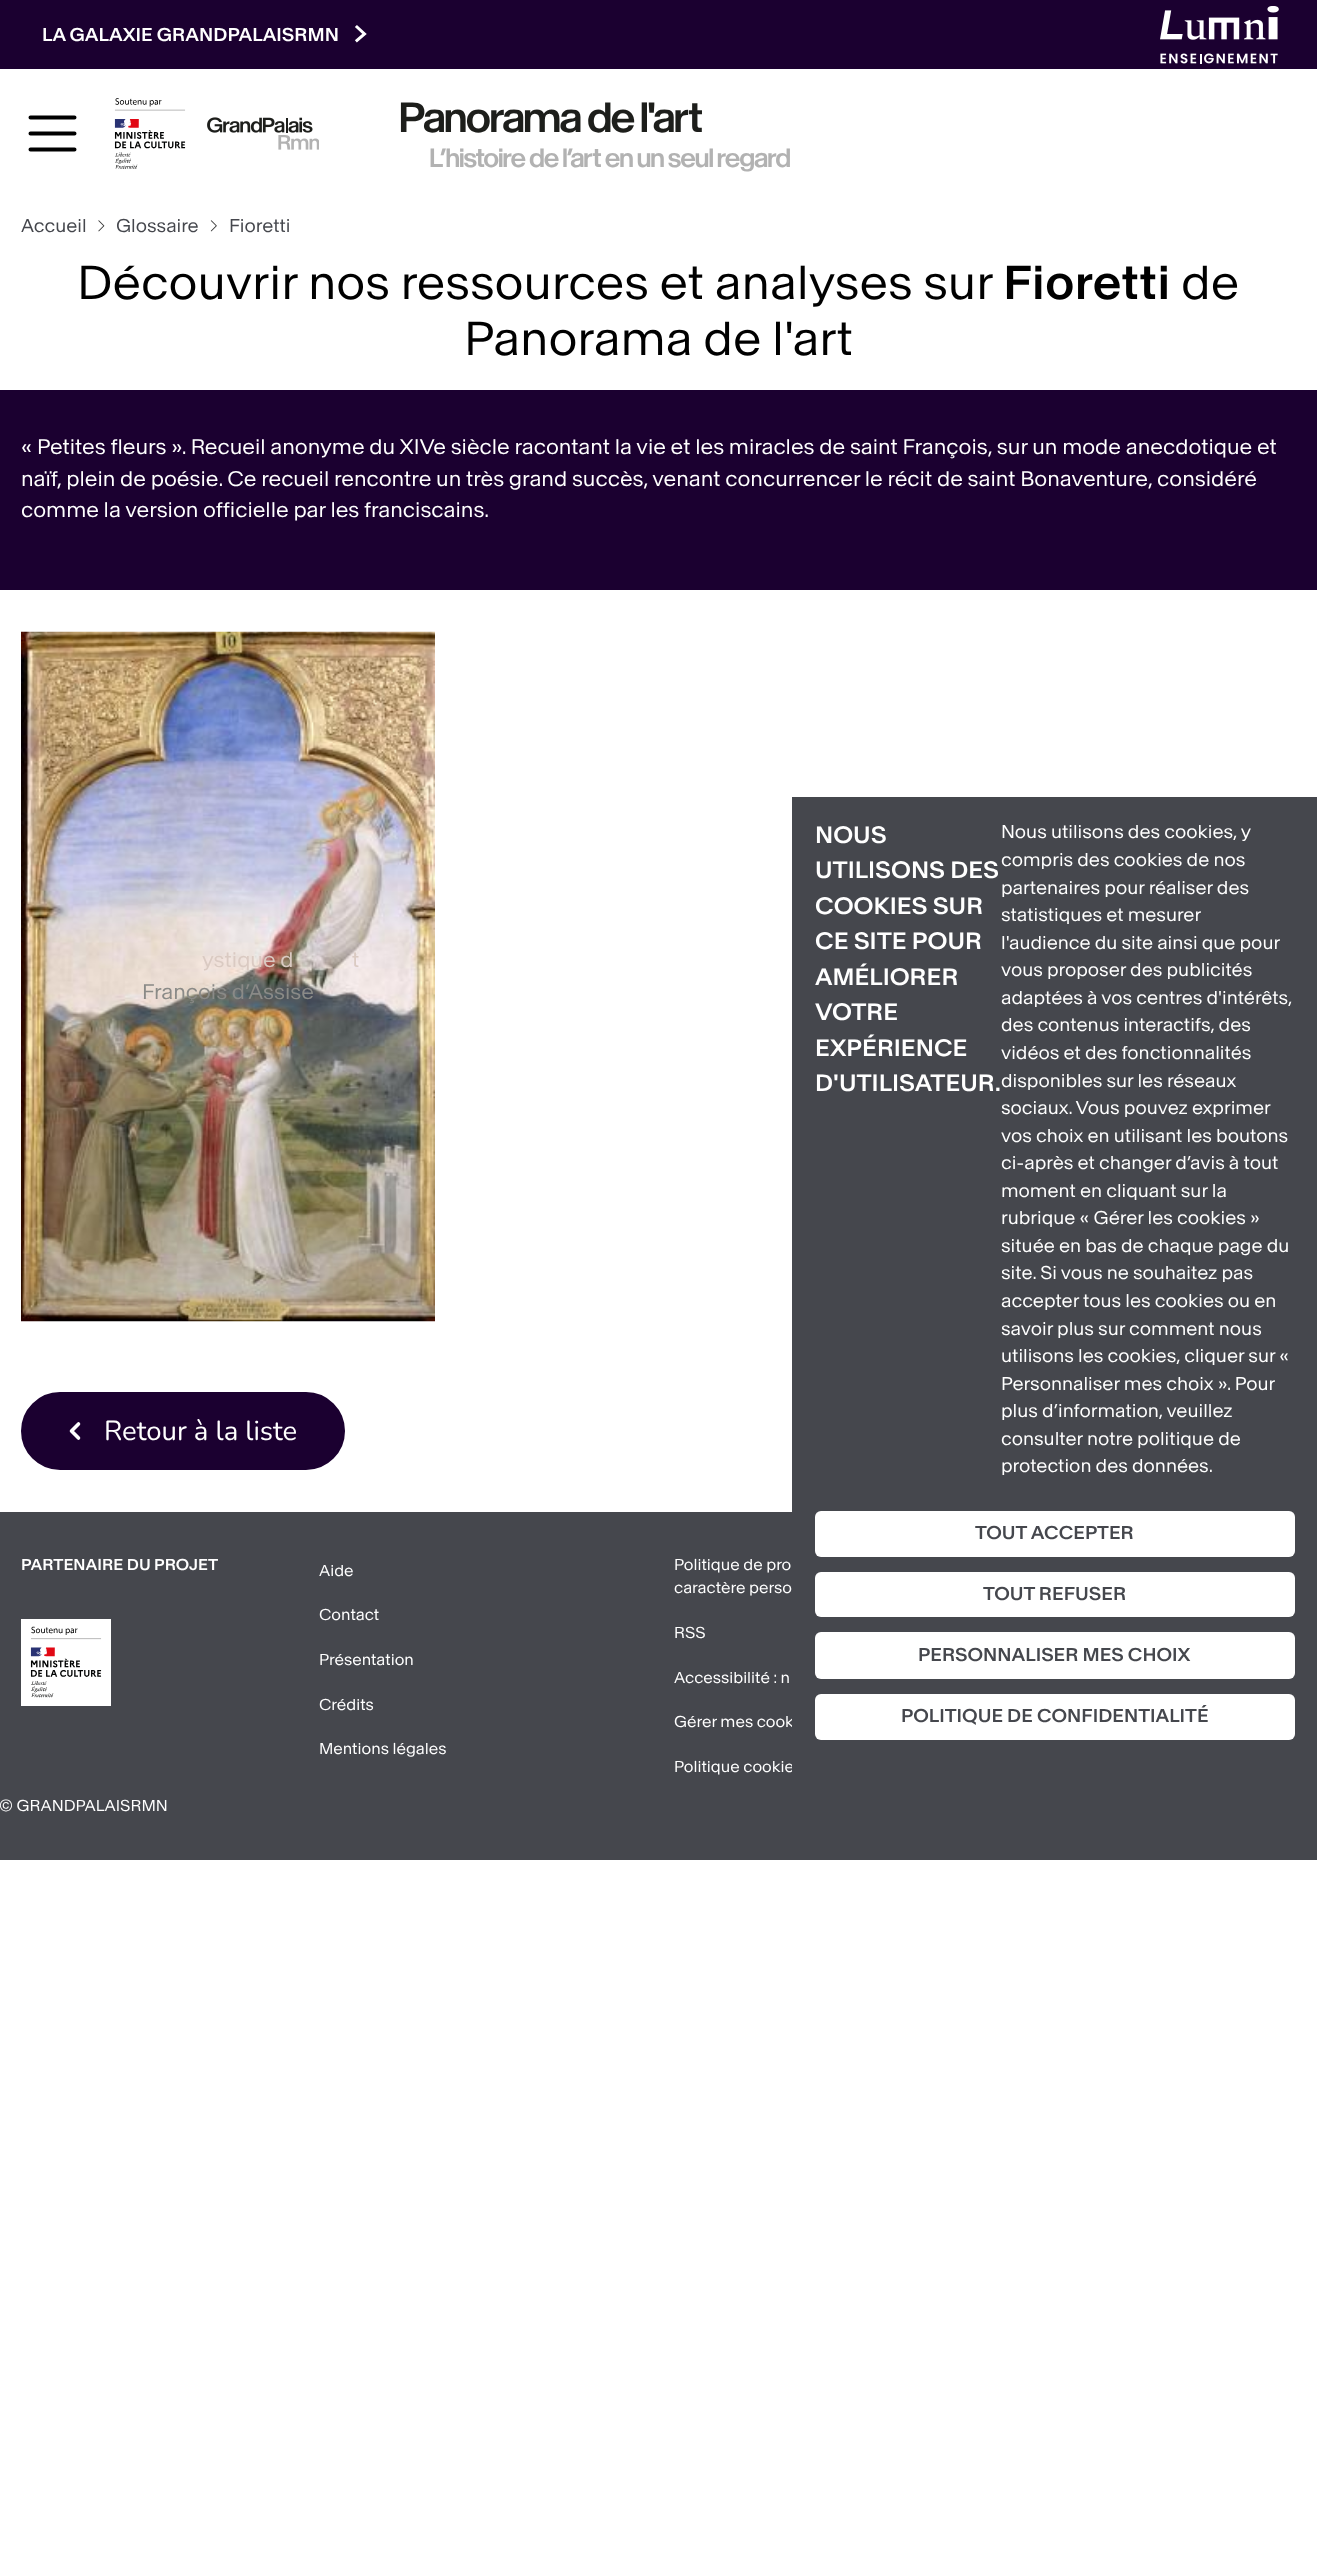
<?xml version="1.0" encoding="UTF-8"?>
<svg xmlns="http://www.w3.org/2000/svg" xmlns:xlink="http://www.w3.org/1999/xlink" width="1317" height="2574">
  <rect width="100%" height="100%" fill="#ffffff" />
  <rect width="1317" height="69" fill="#1b0030" />
  <path d="M 357 40.5 l 7.5 -6.5 l -7.5 -7" fill="none" stroke="#ffffff" stroke-width="3" stroke-linecap="square" />
  <image x="1160" y="6" width="119" height="58" xlink:href="image1.png" />
  <path d="M 30.5 117.5 h 44 m -44 16 h 44 m -44 16 h 44" fill="none" stroke="#000000" stroke-width="4" stroke-linecap="round" />
  <image x="114" y="98" width="72" height="71" xlink:href="image2.png" />
  <image x="207" y="117" width="112" height="33" xlink:href="image3.png" />
  <image x="98" y="220" width="7" height="12" xlink:href="image4.png" />
  <image x="210" y="220" width="7" height="12" xlink:href="image5.png" />
  <rect y="390" width="1317" height="200" fill="#1b0030" />
  <image x="21" y="631" width="414" height="691" xlink:href="image6.png" />
  <rect x="22.5" y="1393.5" width="321" height="75" rx="37.5" fill="#1b0030" stroke="#1b0030" stroke-width="3" />
  <path d="M 78.5 1424 l -7 7 l 7 7" fill="none" stroke="#ffffff" stroke-width="3.6" stroke-linecap="round" stroke-linejoin="round" />
  <rect y="1512" width="1317" height="348" fill="#45474d" />
  <rect x="21" y="1619" width="90" height="87" fill="#ffffff" />
  <image x="30" y="1626" width="72" height="72" xlink:href="image7.png" />
  <text x="42" y="41" style="font-family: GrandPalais; font-size: 18.4px; font-weight: 500; fill: #ffffff">LA GALAXIE GRANDPALAISRMN</text>
  <text x="400" y="132" style="font-family: 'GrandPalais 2'; font-size: 42px; font-weight: 500; fill: #1d1e1b">Panorama de l'art</text>
  <text x="430" y="167" style="font-family: 'GrandPalais 2'; font-size: 26.25px; font-weight: 500; fill: #b2b2b2">L’histoire de l’art en un seul regard</text>
  <text x="21" y="232" style="font-family: GrandPalais; font-size: 18.4px; fill: #45474d">Accueil</text>
  <text x="116" y="232" style="font-family: GrandPalais; font-size: 18.4px; fill: #45474d">Glossaire</text>
  <text x="229" y="232" style="font-family: GrandPalais; font-size: 18.4px; fill: #45474d">Fioretti</text>
  <text x="77" y="299" style="font-family: GrandPalais; font-size: 47.25px; fill: #000000">Découvrir nos ressources et analyses sur</text>
  <text x="1003" y="299" style="font-family: GrandPalais; font-size: 47.25px; font-weight: 500; fill: #000000">Fioretti</text>
  <text x="1181" y="299" style="font-family: GrandPalais; font-size: 47.25px; fill: #000000">de</text>
  <text x="464" y="355" style="font-family: GrandPalais; font-size: 47.25px; fill: #000000">Panorama de l'art</text>
  <text x="21" y="454" style="font-family: GrandPalais; font-size: 21px; fill: #ffffff">« Petites fleurs ». Recueil anonyme du XIVe siècle racontant la vie et les miracles de saint François, sur un mode anecdotique et</text>
  <text x="21" y="486" style="font-family: GrandPalais; font-size: 21px; fill: #ffffff">naïf, plein de poésie. Ce recueil rencontre un très grand succès, venant concurrencer le récit de saint Bonaventure, considéré</text>
  <text x="21" y="517" style="font-family: GrandPalais; font-size: 21px; fill: #ffffff">comme la version officielle par les franciscains.</text>
  <text x="202" y="967" style="font-family: GrandPalais; font-size: 21px; fill: #dacac2">ystique d</text>
  <text x="352" y="967" style="font-family: GrandPalais; font-size: 21px; fill: #dacac2">t</text>
  <text x="142" y="999" style="font-family: GrandPalais; font-size: 21px; fill: #8a8a87">François d’Assise</text>
  <text x="104" y="1440" style="font-family: Nunito; font-size: 27.5px; fill: #ffffff">Retour à la liste</text>
  <text x="21" y="1570" style="font-family: GrandPalais; font-size: 15.75px; font-weight: 500; fill: #ffffff">PARTENAIRE DU PROJET</text>
  <text x="319" y="1576" style="font-family: GrandPalais; font-size: 15.75px; fill: #ffffff">Aide</text>
  <text x="674" y="1570" style="font-family: GrandPalais; font-size: 15.75px; fill: #ffffff">Politique de pro</text>
  <text x="674" y="1593" style="font-family: GrandPalais; font-size: 15.75px; fill: #ffffff">caractère perso</text>
  <text x="319" y="1620" style="font-family: GrandPalais; font-size: 15.75px; fill: #ffffff">Contact</text>
  <text x="674" y="1638" style="font-family: GrandPalais; font-size: 15.75px; fill: #ffffff">RSS</text>
  <text x="319" y="1665" style="font-family: GrandPalais; font-size: 15.75px; fill: #ffffff">Présentation</text>
  <text x="674" y="1683" style="font-family: GrandPalais; font-size: 15.75px; fill: #ffffff">Accessibilité : n</text>
  <text x="319" y="1710" style="font-family: GrandPalais; font-size: 15.75px; fill: #ffffff">Crédits</text>
  <text x="674" y="1727" style="font-family: GrandPalais; font-size: 15.75px; fill: #ffffff">Gérer mes cook</text>
  <text x="319" y="1754" style="font-family: GrandPalais; font-size: 15.75px; fill: #ffffff">Mentions légales</text>
  <text x="674" y="1772" style="font-family: GrandPalais; font-size: 15.75px; fill: #ffffff">Politique cookie</text>
  <text x="-1" y="1811" style="font-family: GrandPalais; font-size: 15.75px; fill: #ffffff">© GRANDPALAISRMN</text>
  <rect x="792" y="797" width="525" height="975" fill="#45474d" />
  <text x="815" y="843" style="font-family: GrandPalais; font-size: 23.5px; font-weight: 500; fill: #ffffff">NOUS</text>
  <text x="815" y="878" style="font-family: GrandPalais; font-size: 23.5px; font-weight: 500; fill: #ffffff">UTILISONS DES</text>
  <text x="815" y="914" style="font-family: GrandPalais; font-size: 23.5px; font-weight: 500; fill: #ffffff">COOKIES SUR</text>
  <text x="815" y="949" style="font-family: GrandPalais; font-size: 23.5px; font-weight: 500; fill: #ffffff">CE SITE POUR</text>
  <text x="815" y="985" style="font-family: GrandPalais; font-size: 23.5px; font-weight: 500; fill: #ffffff">AMÉLIORER</text>
  <text x="815" y="1020" style="font-family: GrandPalais; font-size: 23.5px; font-weight: 500; fill: #ffffff">VOTRE</text>
  <text x="815" y="1056" style="font-family: GrandPalais; font-size: 23.5px; font-weight: 500; fill: #ffffff">EXPÉRIENCE</text>
  <text x="815" y="1091" style="font-family: GrandPalais; font-size: 23.5px; font-weight: 500; fill: #ffffff">D'UTILISATEUR.</text>
  <text x="1001" y="838" style="font-family: GrandPalais; font-size: 18.4px; fill: #ffffff">Nous utilisons des cookies, y</text>
  <text x="1001" y="866" style="font-family: GrandPalais; font-size: 18.4px; fill: #ffffff">compris des cookies de nos</text>
  <text x="1001" y="894" style="font-family: GrandPalais; font-size: 18.4px; fill: #ffffff">partenaires pour réaliser des</text>
  <text x="1001" y="921" style="font-family: GrandPalais; font-size: 18.4px; fill: #ffffff">statistiques et mesurer</text>
  <text x="1001" y="949" style="font-family: GrandPalais; font-size: 18.4px; fill: #ffffff">l'audience du site ainsi que pour</text>
  <text x="1001" y="976" style="font-family: GrandPalais; font-size: 18.4px; fill: #ffffff">vous proposer des publicités</text>
  <text x="1001" y="1004" style="font-family: GrandPalais; font-size: 18.4px; fill: #ffffff">adaptées à vos centres d'intérêts,</text>
  <text x="1001" y="1031" style="font-family: GrandPalais; font-size: 18.4px; fill: #ffffff">des contenus interactifs, des</text>
  <text x="1001" y="1059" style="font-family: GrandPalais; font-size: 18.4px; fill: #ffffff">vidéos et des fonctionnalités</text>
  <text x="1001" y="1087" style="font-family: GrandPalais; font-size: 18.4px; fill: #ffffff">disponibles sur les réseaux</text>
  <text x="1001" y="1114" style="font-family: GrandPalais; font-size: 18.4px; fill: #ffffff">sociaux. Vous pouvez exprimer</text>
  <text x="1001" y="1142" style="font-family: GrandPalais; font-size: 18.4px; fill: #ffffff">vos choix en utilisant les boutons</text>
  <text x="1001" y="1169" style="font-family: GrandPalais; font-size: 18.4px; fill: #ffffff">ci-après et changer d’avis à tout</text>
  <text x="1001" y="1197" style="font-family: GrandPalais; font-size: 18.4px; fill: #ffffff">moment en cliquant sur la</text>
  <text x="1001" y="1224" style="font-family: GrandPalais; font-size: 18.4px; fill: #ffffff">rubrique « Gérer les cookies »</text>
  <text x="1001" y="1252" style="font-family: GrandPalais; font-size: 18.4px; fill: #ffffff">située en bas de chaque page du</text>
  <text x="1001" y="1279" style="font-family: GrandPalais; font-size: 18.4px; fill: #ffffff">site. Si vous ne souhaitez pas</text>
  <text x="1001" y="1307" style="font-family: GrandPalais; font-size: 18.4px; fill: #ffffff">accepter tous les cookies ou en</text>
  <text x="1001" y="1335" style="font-family: GrandPalais; font-size: 18.4px; fill: #ffffff">savoir plus sur comment nous</text>
  <text x="1001" y="1362" style="font-family: GrandPalais; font-size: 18.4px; fill: #ffffff">utilisons les cookies, cliquer sur «</text>
  <text x="1001" y="1390" style="font-family: GrandPalais; font-size: 18.4px; fill: #ffffff">Personnaliser mes choix ». Pour</text>
  <text x="1001" y="1417" style="font-family: GrandPalais; font-size: 18.4px; fill: #ffffff">plus d’information, veuillez</text>
  <text x="1001" y="1445" style="font-family: GrandPalais; font-size: 18.4px; fill: #ffffff">consulter notre politique de</text>
  <text x="1001" y="1472" style="font-family: GrandPalais; font-size: 18.4px; fill: #ffffff">protection des données.</text>
  <rect x="815" y="1511" width="480" height="46" rx="6" fill="#ffffff" />
  <text x="975" y="1539" style="font-family: GrandPalais; font-size: 18.4px; font-weight: 500; fill: #45474d">TOUT ACCEPTER</text>
  <rect x="815" y="1572" width="480" height="45" rx="6" fill="#ffffff" />
  <text x="983" y="1600" style="font-family: GrandPalais; font-size: 18.4px; font-weight: 500; fill: #45474d">TOUT REFUSER</text>
  <rect x="815" y="1632" width="480" height="47" rx="6" fill="#ffffff" />
  <text x="918" y="1661" style="font-family: GrandPalais; font-size: 18.4px; font-weight: 500; fill: #45474d">PERSONNALISER MES CHOIX</text>
  <rect x="815" y="1694" width="480" height="46" rx="6" fill="#ffffff" />
  <text x="901" y="1722" style="font-family: GrandPalais; font-size: 18.4px; font-weight: 500; fill: #45474d">POLITIQUE DE CONFIDENTIALITÉ</text>
</svg>
